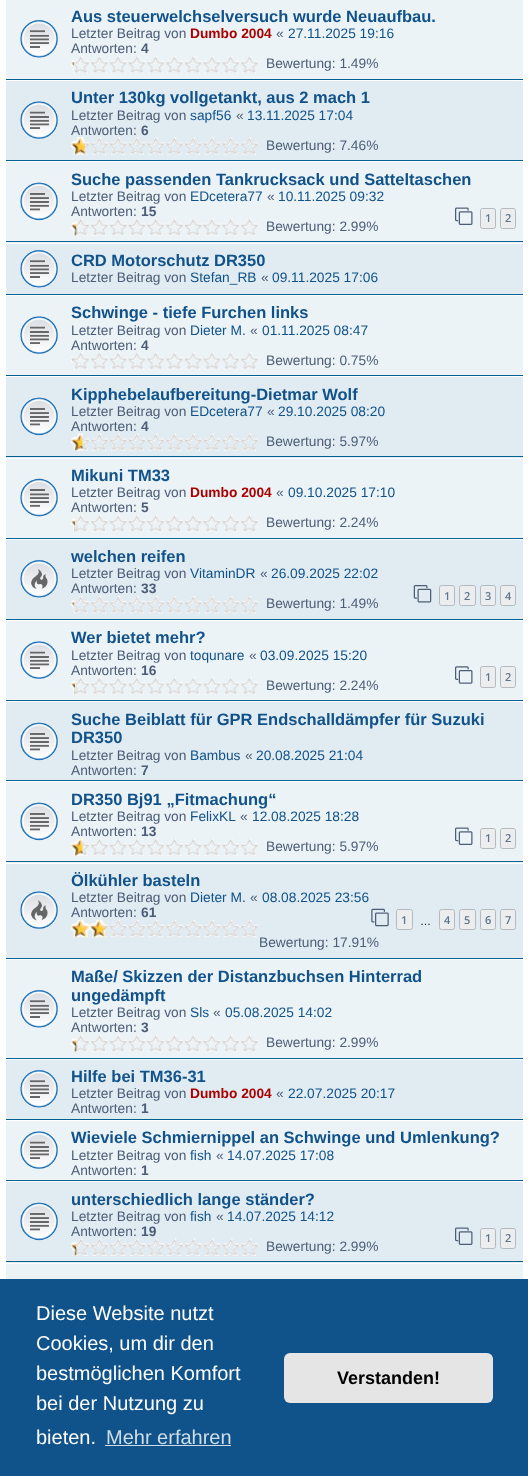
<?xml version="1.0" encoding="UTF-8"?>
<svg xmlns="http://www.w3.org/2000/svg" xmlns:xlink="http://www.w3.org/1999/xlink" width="528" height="1476">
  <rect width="100%" height="100%" fill="#ffffff" />
  <rect x="6" width="517" height="79" fill="#ecf3f7" />
  <rect x="6" y="79" width="517" height="1" fill="#00608f" />
  <image x="20" y="19" width="38" height="39" xlink:href="image1.png" />
  <image x="73" y="56" width="185" height="18" xlink:href="image2.png" />
  <image x="71" y="60" width="3" height="13" xlink:href="image3.png" />
  <rect x="6" y="81" width="517" height="79" fill="#e1ebf2" />
  <rect x="6" y="160" width="517" height="1" fill="#00608f" />
  <image x="20" y="101" width="38" height="38" xlink:href="image4.png" />
  <image x="71" y="137" width="188" height="18" xlink:href="image5.png" />
  <image x="71" y="137" width="14" height="18" xlink:href="image6.png" />
  <rect x="6" y="162" width="517" height="81" fill="#ecf3f7" />
  <rect x="6" y="241" width="517" height="1" fill="#00608f" />
  <image x="20" y="182" width="38" height="39" xlink:href="image7.png" />
  <image x="455" y="207" width="18" height="18" xlink:href="image8.png" />
  <rect x="480.5" y="208.5" width="15" height="20" rx="2" fill="#ecedee" stroke="#b4bac0" />
  <rect x="500.5" y="208.5" width="15" height="20" rx="2" fill="#ecedee" stroke="#b4bac0" />
  <image x="71" y="218" width="188" height="18" xlink:href="image9.png" />
  <image x="71" y="221" width="6" height="15" xlink:href="image10.png" />
  <rect x="6" y="244" width="517" height="50" fill="#e1ebf2" />
  <rect x="6" y="294" width="517" height="1" fill="#00608f" />
  <image x="20" y="249" width="38" height="39" xlink:href="image11.png" />
  <rect x="6" y="296" width="517" height="79" fill="#ecf3f7" />
  <rect x="6" y="375" width="517" height="1" fill="#00608f" />
  <image x="20" y="316" width="38" height="38" xlink:href="image12.png" />
  <image x="72" y="352" width="186" height="18" xlink:href="image13.png" />
  <image x="71" y="356" width="2" height="7" xlink:href="image14.png" />
  <rect x="6" y="377" width="517" height="81" fill="#e1ebf2" />
  <rect x="6" y="456" width="517" height="1" fill="#00608f" />
  <image x="20" y="397" width="38" height="39" xlink:href="image15.png" />
  <image x="71" y="433" width="188" height="18" xlink:href="image16.png" />
  <image x="71" y="433" width="12" height="18" xlink:href="image17.png" />
  <rect x="6" y="459" width="517" height="79" fill="#ecf3f7" />
  <rect x="6" y="538" width="517" height="1" fill="#00608f" />
  <image x="20" y="478" width="38" height="39" xlink:href="image18.png" />
  <image x="71" y="514" width="188" height="18" xlink:href="image19.png" />
  <image x="71" y="518" width="4" height="15" xlink:href="image20.png" />
  <rect x="6" y="540" width="517" height="79" fill="#e1ebf2" />
  <rect x="6" y="619" width="517" height="1" fill="#00608f" />
  <image x="20" y="559" width="38" height="39" xlink:href="image21.png" />
  <image x="413" y="585" width="19" height="18" xlink:href="image22.png" />
  <rect x="439.5" y="585.5" width="15" height="20" rx="2" fill="#ecedee" stroke="#b4bac0" />
  <rect x="459.5" y="585.5" width="16" height="20" rx="2" fill="#ecedee" stroke="#b4bac0" />
  <rect x="480.5" y="585.5" width="15" height="20" rx="2" fill="#ecedee" stroke="#b4bac0" />
  <rect x="500.5" y="585.5" width="15" height="20" rx="2" fill="#ecedee" stroke="#b4bac0" />
  <image x="71" y="596" width="188" height="18" xlink:href="image23.png" />
  <image x="71" y="599" width="3" height="14" xlink:href="image24.png" />
  <rect x="6" y="621" width="517" height="79" fill="#ecf3f7" />
  <rect x="6" y="700" width="517" height="1" fill="#00608f" />
  <image x="20" y="641" width="38" height="38" xlink:href="image12.png" />
  <image x="455" y="666" width="18" height="18" xlink:href="image25.png" />
  <rect x="480.5" y="666.5" width="15" height="21" rx="2" fill="#ecedee" stroke="#b4bac0" />
  <rect x="500.5" y="666.5" width="15" height="21" rx="2" fill="#ecedee" stroke="#b4bac0" />
  <image x="73" y="677" width="185" height="18" xlink:href="image26.png" />
  <image x="71" y="681" width="4" height="14" xlink:href="image27.png" />
  <rect x="6" y="702" width="517" height="78" fill="#e1ebf2" />
  <rect x="6" y="780" width="517" height="1" fill="#00608f" />
  <image x="20" y="722" width="38" height="39" xlink:href="image15.png" />
  <rect x="6" y="782" width="517" height="81" fill="#ecf3f7" />
  <rect x="6" y="861" width="517" height="1" fill="#00608f" />
  <image x="20" y="802" width="38" height="39" xlink:href="image7.png" />
  <image x="455" y="827" width="18" height="18" xlink:href="image8.png" />
  <rect x="480.5" y="828.5" width="15" height="20" rx="2" fill="#ecedee" stroke="#b4bac0" />
  <rect x="500.5" y="828.5" width="15" height="20" rx="2" fill="#ecedee" stroke="#b4bac0" />
  <image x="71" y="838" width="188" height="18" xlink:href="image28.png" />
  <image x="71" y="838" width="12" height="18" xlink:href="image29.png" />
  <rect x="6" y="864" width="517" height="94" fill="#e1ebf2" />
  <rect x="6" y="958" width="517" height="1" fill="#00608f" />
  <image x="20" y="891" width="38" height="38" xlink:href="image30.png" />
  <image x="371" y="908" width="18" height="19" xlink:href="image31.png" />
  <rect x="396.5" y="909.5" width="16" height="20" rx="2" fill="#ecedee" stroke="#b4bac0" />
  <rect x="439.5" y="909.5" width="15" height="20" rx="2" fill="#ecedee" stroke="#b4bac0" />
  <rect x="459.5" y="909.5" width="16" height="20" rx="2" fill="#ecedee" stroke="#b4bac0" />
  <rect x="480.5" y="909.5" width="15" height="20" rx="2" fill="#ecedee" stroke="#b4bac0" />
  <rect x="500.5" y="909.5" width="15" height="20" rx="2" fill="#ecedee" stroke="#b4bac0" />
  <image x="71" y="919" width="188" height="19" xlink:href="image32.png" />
  <image x="71" y="919" width="34" height="19" xlink:href="image33.png" />
  <rect x="6" y="960" width="517" height="98" fill="#ecf3f7" />
  <rect x="6" y="1058" width="517" height="1" fill="#00608f" />
  <image x="20" y="989" width="38" height="39" xlink:href="image1.png" />
  <image x="71" y="1034" width="188" height="18" xlink:href="image34.png" />
  <image x="71" y="1038" width="6" height="15" xlink:href="image35.png" />
  <rect x="6" y="1060" width="517" height="59" fill="#e1ebf2" />
  <rect x="6" y="1119" width="517" height="1" fill="#00608f" />
  <image x="20" y="1069" width="38" height="39" xlink:href="image11.png" />
  <rect x="6" y="1121" width="517" height="59" fill="#ecf3f7" />
  <rect x="6" y="1180" width="517" height="1" fill="#00608f" />
  <image x="20" y="1131" width="38" height="38" xlink:href="image12.png" />
  <rect x="6" y="1182" width="517" height="81" fill="#e1ebf2" />
  <rect x="6" y="1261" width="517" height="1" fill="#00608f" />
  <image x="20" y="1202" width="38" height="39" xlink:href="image15.png" />
  <image x="455" y="1227" width="18" height="18" xlink:href="image36.png" />
  <rect x="480.5" y="1228.5" width="15" height="20" rx="2" fill="#ecedee" stroke="#b4bac0" />
  <rect x="500.5" y="1228.5" width="15" height="20" rx="2" fill="#ecedee" stroke="#b4bac0" />
  <image x="71" y="1238" width="188" height="18" xlink:href="image37.png" />
  <image x="71" y="1241" width="6" height="15" xlink:href="image38.png" />
  <rect x="6" y="1264" width="517" height="15" fill="#ecf3f7" />
  <rect y="1279" width="528" height="197" fill="#0f538a" />
  <rect x="105" y="1445" width="126" height="1" fill="#cfdde8" />
  <rect x="284" y="1353" width="209" height="50" rx="6" fill="#e5e5e5" />
  <text x="71" y="22" style="font-family: Liberation Sans; font-size: 16.5px; font-weight: bold; fill: #105289">Aus steuerwelchselversuch wurde Neuaufbau.</text>
  <text x="71" y="38" style="font-family: Liberation Sans; font-size: 13.75px; fill: #4c5d77">Letzter Beitrag von</text>
  <text x="190" y="38" style="font-family: Liberation Sans; font-size: 13.75px; font-weight: bold; fill: #aa0000">Dumbo 2004</text>
  <text x="276" y="38" style="font-family: Liberation Sans; font-size: 13.75px; fill: #4c5d77">«</text>
  <text x="288" y="38" style="font-family: Liberation Sans; font-size: 13.75px; fill: #105289">27.11.2025 19:16</text>
  <text x="71" y="53" style="font-family: Liberation Sans; font-size: 13.75px; fill: #4c5d77">Antworten:</text>
  <text x="141" y="53" style="font-family: Liberation Sans; font-size: 13.75px; font-weight: bold; fill: #4c5d77">4</text>
  <text x="266" y="68" style="font-family: Liberation Sans; font-size: 13.75px; fill: #4c5d77">Bewertung: 1.49%</text>
  <text x="71" y="103" style="font-family: Liberation Sans; font-size: 16.5px; font-weight: bold; fill: #105289">Unter 130kg vollgetankt, aus 2 mach 1</text>
  <text x="71" y="120" style="font-family: Liberation Sans; font-size: 13.75px; fill: #4c5d77">Letzter Beitrag von</text>
  <text x="190" y="120" style="font-family: Liberation Sans; font-size: 13.75px; fill: #105289">sapf56</text>
  <text x="236" y="120" style="font-family: Liberation Sans; font-size: 13.75px; fill: #4c5d77">«</text>
  <text x="247" y="120" style="font-family: Liberation Sans; font-size: 13.75px; fill: #105289">13.11.2025 17:04</text>
  <text x="71" y="135" style="font-family: Liberation Sans; font-size: 13.75px; fill: #4c5d77">Antworten:</text>
  <text x="141" y="135" style="font-family: Liberation Sans; font-size: 13.75px; font-weight: bold; fill: #4c5d77">6</text>
  <text x="266" y="150" style="font-family: Liberation Sans; font-size: 13.75px; fill: #4c5d77">Bewertung: 7.46%</text>
  <text x="71" y="185" style="font-family: Liberation Sans; font-size: 16.5px; font-weight: bold; fill: #105289">Suche passenden Tankrucksack und Satteltaschen</text>
  <text x="71" y="201" style="font-family: Liberation Sans; font-size: 13.75px; fill: #4c5d77">Letzter Beitrag von</text>
  <text x="190" y="201" style="font-family: Liberation Sans; font-size: 13.75px; fill: #105289">EDcetera77</text>
  <text x="267" y="201" style="font-family: Liberation Sans; font-size: 13.75px; fill: #4c5d77">«</text>
  <text x="278" y="201" style="font-family: Liberation Sans; font-size: 13.75px; fill: #105289">10.11.2025 09:32</text>
  <text x="71" y="216" style="font-family: Liberation Sans; font-size: 13.75px; fill: #4c5d77">Antworten:</text>
  <text x="141" y="216" style="font-family: Liberation Sans; font-size: 13.75px; font-weight: bold; fill: #4c5d77">15</text>
  <text x="485" y="222" style="font-family: Open Sans; font-size: 11px; font-weight: 600; fill: #5c758c">1</text>
  <text x="505" y="222" style="font-family: Open Sans; font-size: 11px; font-weight: 600; fill: #5c758c">2</text>
  <text x="266" y="231" style="font-family: Liberation Sans; font-size: 13.75px; fill: #4c5d77">Bewertung: 2.99%</text>
  <text x="71" y="266" style="font-family: Liberation Sans; font-size: 16.5px; font-weight: bold; fill: #105289">CRD Motorschutz DR350</text>
  <text x="71" y="282" style="font-family: Liberation Sans; font-size: 13.75px; fill: #4c5d77">Letzter Beitrag von</text>
  <text x="190" y="282" style="font-family: Liberation Sans; font-size: 13.75px; fill: #105289">Stefan_RB</text>
  <text x="261" y="282" style="font-family: Liberation Sans; font-size: 13.75px; fill: #4c5d77">«</text>
  <text x="272" y="282" style="font-family: Liberation Sans; font-size: 13.75px; fill: #105289">09.11.2025 17:06</text>
  <text x="71" y="318" style="font-family: Liberation Sans; font-size: 16.5px; font-weight: bold; fill: #105289">Schwinge - tiefe Furchen links</text>
  <text x="71" y="335" style="font-family: Liberation Sans; font-size: 13.75px; fill: #4c5d77">Letzter Beitrag von</text>
  <text x="190" y="335" style="font-family: Liberation Sans; font-size: 13.75px; fill: #105289">Dieter M.</text>
  <text x="250" y="335" style="font-family: Liberation Sans; font-size: 13.75px; fill: #4c5d77">«</text>
  <text x="262" y="335" style="font-family: Liberation Sans; font-size: 13.75px; fill: #105289">01.11.2025 08:47</text>
  <text x="71" y="350" style="font-family: Liberation Sans; font-size: 13.75px; fill: #4c5d77">Antworten:</text>
  <text x="141" y="350" style="font-family: Liberation Sans; font-size: 13.75px; font-weight: bold; fill: #4c5d77">4</text>
  <text x="266" y="365" style="font-family: Liberation Sans; font-size: 13.75px; fill: #4c5d77">Bewertung: 0.75%</text>
  <text x="71" y="400" style="font-family: Liberation Sans; font-size: 16.5px; font-weight: bold; fill: #105289">Kipphebelaufbereitung-Dietmar Wolf</text>
  <text x="71" y="416" style="font-family: Liberation Sans; font-size: 13.75px; fill: #4c5d77">Letzter Beitrag von</text>
  <text x="190" y="416" style="font-family: Liberation Sans; font-size: 13.75px; fill: #105289">EDcetera77</text>
  <text x="267" y="416" style="font-family: Liberation Sans; font-size: 13.75px; fill: #4c5d77">«</text>
  <text x="278" y="416" style="font-family: Liberation Sans; font-size: 13.75px; fill: #105289">29.10.2025 08:20</text>
  <text x="71" y="431" style="font-family: Liberation Sans; font-size: 13.75px; fill: #4c5d77">Antworten:</text>
  <text x="141" y="431" style="font-family: Liberation Sans; font-size: 13.75px; font-weight: bold; fill: #4c5d77">4</text>
  <text x="266" y="446" style="font-family: Liberation Sans; font-size: 13.75px; fill: #4c5d77">Bewertung: 5.97%</text>
  <text x="71" y="481" style="font-family: Liberation Sans; font-size: 16.5px; font-weight: bold; fill: #105289">Mikuni TM33</text>
  <text x="71" y="497" style="font-family: Liberation Sans; font-size: 13.75px; fill: #4c5d77">Letzter Beitrag von</text>
  <text x="190" y="497" style="font-family: Liberation Sans; font-size: 13.75px; font-weight: bold; fill: #aa0000">Dumbo 2004</text>
  <text x="276" y="497" style="font-family: Liberation Sans; font-size: 13.75px; fill: #4c5d77">«</text>
  <text x="288" y="497" style="font-family: Liberation Sans; font-size: 13.75px; fill: #105289">09.10.2025 17:10</text>
  <text x="71" y="512" style="font-family: Liberation Sans; font-size: 13.75px; fill: #4c5d77">Antworten:</text>
  <text x="141" y="512" style="font-family: Liberation Sans; font-size: 13.75px; font-weight: bold; fill: #4c5d77">5</text>
  <text x="266" y="527" style="font-family: Liberation Sans; font-size: 13.75px; fill: #4c5d77">Bewertung: 2.24%</text>
  <text x="71" y="562" style="font-family: Liberation Sans; font-size: 16.5px; font-weight: bold; fill: #105289">welchen reifen</text>
  <text x="71" y="578" style="font-family: Liberation Sans; font-size: 13.75px; fill: #4c5d77">Letzter Beitrag von</text>
  <text x="190" y="578" style="font-family: Liberation Sans; font-size: 13.75px; fill: #105289">VitaminDR</text>
  <text x="260" y="578" style="font-family: Liberation Sans; font-size: 13.75px; fill: #4c5d77">«</text>
  <text x="271" y="578" style="font-family: Liberation Sans; font-size: 13.75px; fill: #105289">26.09.2025 22:02</text>
  <text x="71" y="593" style="font-family: Liberation Sans; font-size: 13.75px; fill: #4c5d77">Antworten:</text>
  <text x="141" y="593" style="font-family: Liberation Sans; font-size: 13.75px; font-weight: bold; fill: #4c5d77">33</text>
  <text x="444" y="600" style="font-family: Open Sans; font-size: 11px; font-weight: 600; fill: #5c758c">1</text>
  <text x="464" y="600" style="font-family: Open Sans; font-size: 11px; font-weight: 600; fill: #5c758c">2</text>
  <text x="485" y="600" style="font-family: Open Sans; font-size: 11px; font-weight: 600; fill: #5c758c">3</text>
  <text x="505" y="600" style="font-family: Open Sans; font-size: 11px; font-weight: 600; fill: #5c758c">4</text>
  <text x="266" y="608" style="font-family: Liberation Sans; font-size: 13.75px; fill: #4c5d77">Bewertung: 1.49%</text>
  <text x="71" y="643" style="font-family: Liberation Sans; font-size: 16.5px; font-weight: bold; fill: #105289">Wer bietet mehr?</text>
  <text x="71" y="660" style="font-family: Liberation Sans; font-size: 13.75px; fill: #4c5d77">Letzter Beitrag von</text>
  <text x="190" y="660" style="font-family: Liberation Sans; font-size: 13.75px; fill: #105289">toqunare</text>
  <text x="249" y="660" style="font-family: Liberation Sans; font-size: 13.75px; fill: #4c5d77">«</text>
  <text x="260" y="660" style="font-family: Liberation Sans; font-size: 13.75px; fill: #105289">03.09.2025 15:20</text>
  <text x="71" y="675" style="font-family: Liberation Sans; font-size: 13.75px; fill: #4c5d77">Antworten:</text>
  <text x="141" y="675" style="font-family: Liberation Sans; font-size: 13.75px; font-weight: bold; fill: #4c5d77">16</text>
  <text x="485" y="681" style="font-family: Open Sans; font-size: 11px; font-weight: 600; fill: #5c758c">1</text>
  <text x="505" y="681" style="font-family: Open Sans; font-size: 11px; font-weight: 600; fill: #5c758c">2</text>
  <text x="266" y="690" style="font-family: Liberation Sans; font-size: 13.75px; fill: #4c5d77">Bewertung: 2.24%</text>
  <text x="71" y="725" style="font-family: Liberation Sans; font-size: 16.5px; font-weight: bold; fill: #105289">Suche Beiblatt für GPR Endschalldämpfer für Suzuki</text>
  <text x="71" y="743" style="font-family: Liberation Sans; font-size: 16.5px; font-weight: bold; fill: #105289">DR350</text>
  <text x="71" y="760" style="font-family: Liberation Sans; font-size: 13.75px; fill: #4c5d77">Letzter Beitrag von</text>
  <text x="190" y="760" style="font-family: Liberation Sans; font-size: 13.75px; fill: #105289">Bambus</text>
  <text x="245" y="760" style="font-family: Liberation Sans; font-size: 13.75px; fill: #4c5d77">«</text>
  <text x="256" y="760" style="font-family: Liberation Sans; font-size: 13.75px; fill: #105289">20.08.2025 21:04</text>
  <text x="71" y="775" style="font-family: Liberation Sans; font-size: 13.75px; fill: #4c5d77">Antworten:</text>
  <text x="141" y="775" style="font-family: Liberation Sans; font-size: 13.75px; font-weight: bold; fill: #4c5d77">7</text>
  <text x="71" y="805" style="font-family: Liberation Sans; font-size: 16.5px; font-weight: bold; fill: #105289">DR350 Bj91 „Fitmachung“</text>
  <text x="71" y="821" style="font-family: Liberation Sans; font-size: 13.75px; fill: #4c5d77">Letzter Beitrag von</text>
  <text x="190" y="821" style="font-family: Liberation Sans; font-size: 13.75px; fill: #105289">FelixKL</text>
  <text x="240" y="821" style="font-family: Liberation Sans; font-size: 13.75px; fill: #4c5d77">«</text>
  <text x="252" y="821" style="font-family: Liberation Sans; font-size: 13.75px; fill: #105289">12.08.2025 18:28</text>
  <text x="71" y="836" style="font-family: Liberation Sans; font-size: 13.75px; fill: #4c5d77">Antworten:</text>
  <text x="141" y="836" style="font-family: Liberation Sans; font-size: 13.75px; font-weight: bold; fill: #4c5d77">13</text>
  <text x="485" y="842" style="font-family: Open Sans; font-size: 11px; font-weight: 600; fill: #5c758c">1</text>
  <text x="505" y="842" style="font-family: Open Sans; font-size: 11px; font-weight: 600; fill: #5c758c">2</text>
  <text x="266" y="851" style="font-family: Liberation Sans; font-size: 13.75px; fill: #4c5d77">Bewertung: 5.97%</text>
  <text x="71" y="886" style="font-family: Liberation Sans; font-size: 16.5px; font-weight: bold; fill: #105289">Ölkühler basteln</text>
  <text x="71" y="902" style="font-family: Liberation Sans; font-size: 13.75px; fill: #4c5d77">Letzter Beitrag von</text>
  <text x="190" y="902" style="font-family: Liberation Sans; font-size: 13.75px; fill: #105289">Dieter M.</text>
  <text x="250" y="902" style="font-family: Liberation Sans; font-size: 13.75px; fill: #4c5d77">«</text>
  <text x="262" y="902" style="font-family: Liberation Sans; font-size: 13.75px; fill: #105289">08.08.2025 23:56</text>
  <text x="71" y="917" style="font-family: Liberation Sans; font-size: 13.75px; fill: #4c5d77">Antworten:</text>
  <text x="141" y="917" style="font-family: Liberation Sans; font-size: 13.75px; font-weight: bold; fill: #4c5d77">61</text>
  <text x="401" y="924" style="font-family: Open Sans; font-size: 11px; font-weight: 600; fill: #5c758c">1</text>
  <text x="420" y="925" style="font-family: Liberation Sans; font-size: 11px; fill: #000000">…</text>
  <text x="444" y="924" style="font-family: Open Sans; font-size: 11px; font-weight: 600; fill: #5c758c">4</text>
  <text x="464" y="924" style="font-family: Open Sans; font-size: 11px; font-weight: 600; fill: #5c758c">5</text>
  <text x="485" y="924" style="font-family: Open Sans; font-size: 11px; font-weight: 600; fill: #5c758c">6</text>
  <text x="505" y="924" style="font-family: Open Sans; font-size: 11px; font-weight: 600; fill: #5c758c">7</text>
  <text x="259" y="947" style="font-family: Liberation Sans; font-size: 13.75px; fill: #4c5d77">Bewertung: 17.91%</text>
  <text x="71" y="982" style="font-family: Liberation Sans; font-size: 16.5px; font-weight: bold; fill: #105289">Maße/ Skizzen der Distanzbuchsen Hinterrad</text>
  <text x="71" y="1001" style="font-family: Liberation Sans; font-size: 16.5px; font-weight: bold; fill: #105289">ungedämpft</text>
  <text x="71" y="1017" style="font-family: Liberation Sans; font-size: 13.75px; fill: #4c5d77">Letzter Beitrag von</text>
  <text x="190" y="1017" style="font-family: Liberation Sans; font-size: 13.75px; fill: #105289">Sls</text>
  <text x="213" y="1017" style="font-family: Liberation Sans; font-size: 13.75px; fill: #4c5d77">«</text>
  <text x="225" y="1017" style="font-family: Liberation Sans; font-size: 13.75px; fill: #105289">05.08.2025 14:02</text>
  <text x="71" y="1032" style="font-family: Liberation Sans; font-size: 13.75px; fill: #4c5d77">Antworten:</text>
  <text x="141" y="1032" style="font-family: Liberation Sans; font-size: 13.75px; font-weight: bold; fill: #4c5d77">3</text>
  <text x="266" y="1047" style="font-family: Liberation Sans; font-size: 13.75px; fill: #4c5d77">Bewertung: 2.99%</text>
  <text x="71" y="1082" style="font-family: Liberation Sans; font-size: 16.5px; font-weight: bold; fill: #105289">Hilfe bei TM36-31</text>
  <text x="71" y="1098" style="font-family: Liberation Sans; font-size: 13.75px; fill: #4c5d77">Letzter Beitrag von</text>
  <text x="190" y="1098" style="font-family: Liberation Sans; font-size: 13.75px; font-weight: bold; fill: #aa0000">Dumbo 2004</text>
  <text x="276" y="1098" style="font-family: Liberation Sans; font-size: 13.75px; fill: #4c5d77">«</text>
  <text x="288" y="1098" style="font-family: Liberation Sans; font-size: 13.75px; fill: #105289">22.07.2025 20:17</text>
  <text x="71" y="1113" style="font-family: Liberation Sans; font-size: 13.75px; fill: #4c5d77">Antworten:</text>
  <text x="141" y="1113" style="font-family: Liberation Sans; font-size: 13.75px; font-weight: bold; fill: #4c5d77">1</text>
  <text x="71" y="1143" style="font-family: Liberation Sans; font-size: 16.5px; font-weight: bold; fill: #105289">Wieviele Schmiernippel an Schwinge und Umlenkung?</text>
  <text x="71" y="1160" style="font-family: Liberation Sans; font-size: 13.75px; fill: #4c5d77">Letzter Beitrag von</text>
  <text x="190" y="1160" style="font-family: Liberation Sans; font-size: 13.75px; fill: #105289">fish</text>
  <text x="216" y="1160" style="font-family: Liberation Sans; font-size: 13.75px; fill: #4c5d77">«</text>
  <text x="227" y="1160" style="font-family: Liberation Sans; font-size: 13.75px; fill: #105289">14.07.2025 17:08</text>
  <text x="71" y="1175" style="font-family: Liberation Sans; font-size: 13.75px; fill: #4c5d77">Antworten:</text>
  <text x="141" y="1175" style="font-family: Liberation Sans; font-size: 13.75px; font-weight: bold; fill: #4c5d77">1</text>
  <text x="71" y="1205" style="font-family: Liberation Sans; font-size: 16.5px; font-weight: bold; fill: #105289">unterschiedlich lange ständer?</text>
  <text x="71" y="1221" style="font-family: Liberation Sans; font-size: 13.75px; fill: #4c5d77">Letzter Beitrag von</text>
  <text x="190" y="1221" style="font-family: Liberation Sans; font-size: 13.75px; fill: #105289">fish</text>
  <text x="216" y="1221" style="font-family: Liberation Sans; font-size: 13.75px; fill: #4c5d77">«</text>
  <text x="227" y="1221" style="font-family: Liberation Sans; font-size: 13.75px; fill: #105289">14.07.2025 14:12</text>
  <text x="71" y="1236" style="font-family: Liberation Sans; font-size: 13.75px; fill: #4c5d77">Antworten:</text>
  <text x="141" y="1236" style="font-family: Liberation Sans; font-size: 13.75px; font-weight: bold; fill: #4c5d77">19</text>
  <text x="485" y="1242" style="font-family: Open Sans; font-size: 11px; font-weight: 600; fill: #5c758c">1</text>
  <text x="505" y="1242" style="font-family: Open Sans; font-size: 11px; font-weight: 600; fill: #5c758c">2</text>
  <text x="266" y="1251" style="font-family: Liberation Sans; font-size: 13.75px; fill: #4c5d77">Bewertung: 2.99%</text>
  <text x="36" y="1320" style="font-family: Liberation Sans; font-size: 20px; fill: #ffffff">Diese Website nutzt</text>
  <text x="36" y="1350" style="font-family: Liberation Sans; font-size: 20px; fill: #ffffff">Cookies, um dir den</text>
  <text x="36" y="1380" style="font-family: Liberation Sans; font-size: 20px; fill: #ffffff">bestmöglichen Komfort</text>
  <text x="36" y="1410" style="font-family: Liberation Sans; font-size: 20px; fill: #ffffff">bei der Nutzung zu</text>
  <text x="36" y="1444" style="font-family: Liberation Sans; font-size: 20px; fill: #ffffff">bieten.</text>
  <text x="106" y="1444" style="font-family: Liberation Sans; font-size: 20px; fill: #cfdde8">Mehr erfahren</text>
  <text x="337" y="1384" style="font-family: Liberation Sans; font-size: 18px; font-weight: bold; fill: #000000">Verstanden!</text>
</svg>
